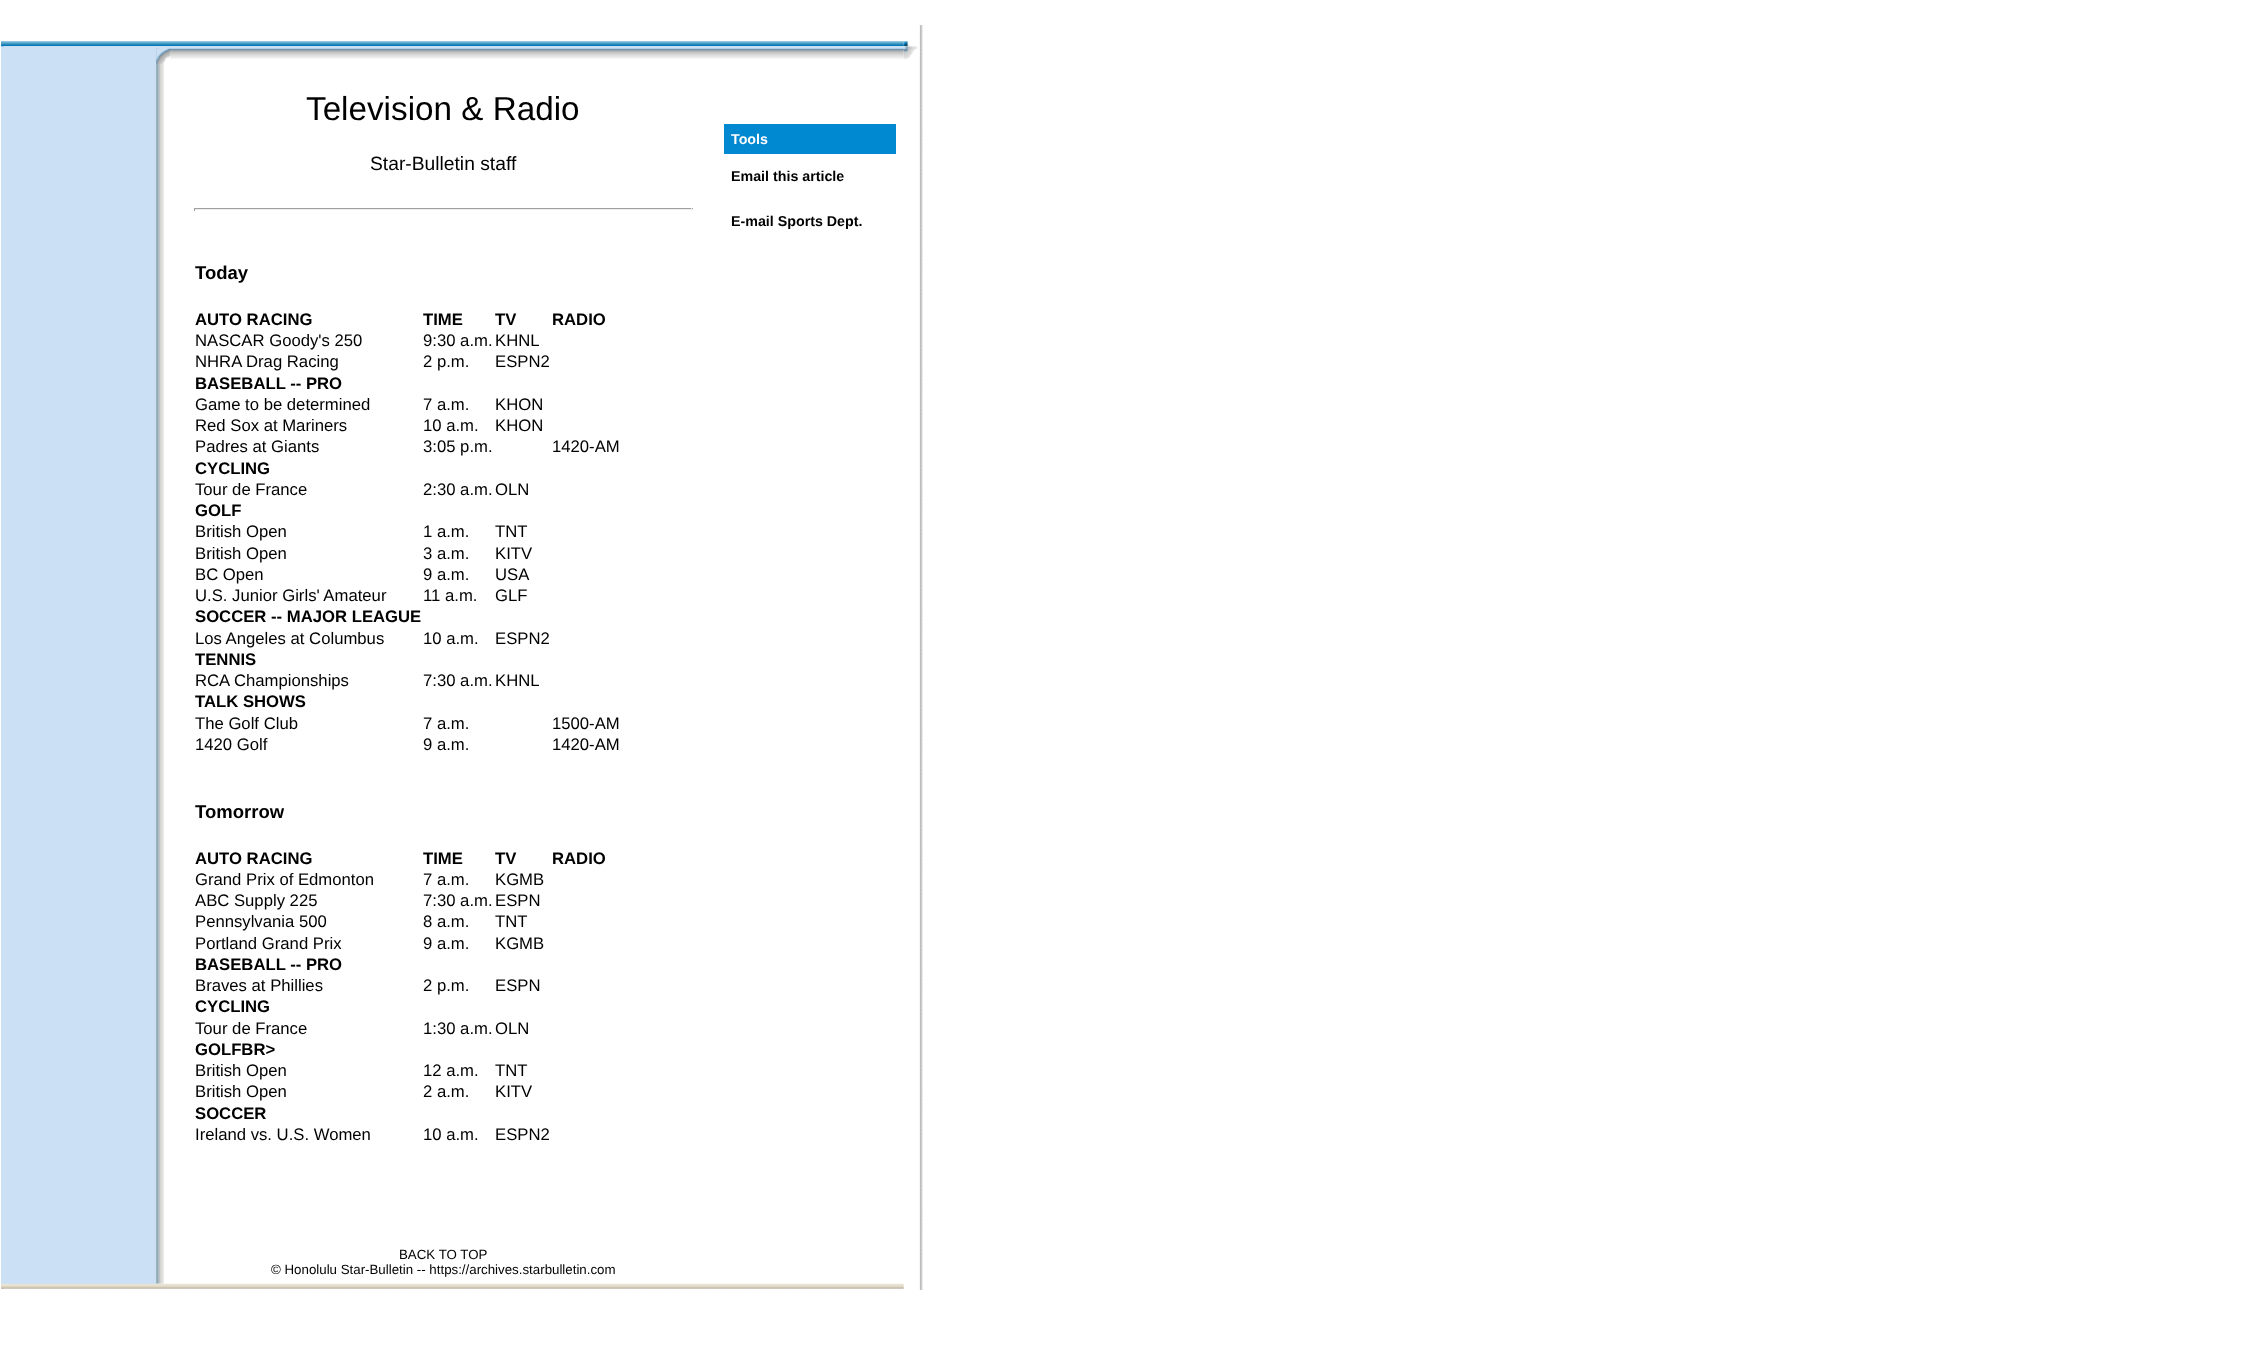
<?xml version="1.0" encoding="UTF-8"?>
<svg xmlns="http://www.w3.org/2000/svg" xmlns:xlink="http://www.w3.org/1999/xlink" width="2252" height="1369">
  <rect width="100%" height="100%" fill="#ffffff" />
  <image x="1" y="41" width="903" height="5" xlink:href="image1.png" />
  <rect x="1" y="46" width="903" height="3" fill="#cbe0f5" />
  <image x="1" y="41" width="3" height="6" xlink:href="image2.png" />
  <image x="904" y="46" width="13" height="3" xlink:href="image4.png" />
  <image x="903" y="41" width="7" height="6" xlink:href="image3.png" />
  <image x="904" y="46" width="14" height="3" xlink:href="image5.png" />
  <rect x="1" y="49" width="155" height="1235" fill="#cbe0f5" />
  <image x="156" y="48" width="8" height="1236" xlink:href="image6.png" />
  <image x="156" y="48" width="14" height="16" xlink:href="image7.png" />
  <image x="170" y="48" width="734" height="11" xlink:href="image8.png" />
  <rect x="194" y="208" width="499" height="1" fill="#9f9f9f" />
  <rect x="691" y="208" width="1" height="3" fill="#eeeeee" />
  <rect x="194" y="209" width="499" height="1" fill="#eeeeee" />
  <rect x="194" y="208" width="1" height="3" fill="#9f9f9f" />
  <rect x="724" y="124" width="172" height="30" fill="#0088d1" />
  <image x="903" y="48" width="12" height="11" xlink:href="image9.png" />
  <image x="1" y="1283" width="903" height="6" xlink:href="image10.png" />
  <image x="1" y="1283" width="3" height="6" xlink:href="image11.png" />
  <image x="919" y="25" width="4" height="1265" xlink:href="image12.png" />
  <text x="306" y="120" style="font-family: Liberation Sans; font-size: 33.25px; fill: #000000">Television &amp; Radio</text>
  <text x="370" y="170" style="font-family: Liberation Sans; font-size: 19.25px; fill: #000000">Star-Bulletin staff</text>
  <text x="195" y="279" style="font-family: Liberation Sans; font-size: 18.5px; font-weight: bold; fill: #000000">Today</text>
  <text x="195" y="325" style="font-family: Liberation Sans; font-size: 16.7px; font-weight: bold; fill: #000000">AUTO RACING</text>
  <text x="423" y="325" style="font-family: Liberation Sans; font-size: 16.7px; font-weight: bold; fill: #000000">TIME</text>
  <text x="495" y="325" style="font-family: Liberation Sans; font-size: 16.7px; font-weight: bold; fill: #000000">TV</text>
  <text x="552" y="325" style="font-family: Liberation Sans; font-size: 16.7px; font-weight: bold; fill: #000000">RADIO</text>
  <text x="195" y="346" style="font-family: Liberation Sans; font-size: 16.7px; fill: #000000">NASCAR Goody's 250</text>
  <text x="423" y="346" style="font-family: Liberation Sans; font-size: 16.7px; fill: #000000">9:30 a.m.</text>
  <text x="495" y="346" style="font-family: Liberation Sans; font-size: 16.7px; fill: #000000">KHNL</text>
  <text x="195" y="367" style="font-family: Liberation Sans; font-size: 16.7px; fill: #000000">NHRA Drag Racing</text>
  <text x="423" y="367" style="font-family: Liberation Sans; font-size: 16.7px; fill: #000000">2 p.m.</text>
  <text x="495" y="367" style="font-family: Liberation Sans; font-size: 16.7px; fill: #000000">ESPN2</text>
  <text x="195" y="389" style="font-family: Liberation Sans; font-size: 16.7px; font-weight: bold; fill: #000000">BASEBALL -- PRO</text>
  <text x="195" y="410" style="font-family: Liberation Sans; font-size: 16.7px; fill: #000000">Game to be determined</text>
  <text x="423" y="410" style="font-family: Liberation Sans; font-size: 16.7px; fill: #000000">7 a.m.</text>
  <text x="495" y="410" style="font-family: Liberation Sans; font-size: 16.7px; fill: #000000">KHON</text>
  <text x="195" y="431" style="font-family: Liberation Sans; font-size: 16.7px; fill: #000000">Red Sox at Mariners</text>
  <text x="423" y="431" style="font-family: Liberation Sans; font-size: 16.7px; fill: #000000">10 a.m.</text>
  <text x="495" y="431" style="font-family: Liberation Sans; font-size: 16.7px; fill: #000000">KHON</text>
  <text x="195" y="452" style="font-family: Liberation Sans; font-size: 16.7px; fill: #000000">Padres at Giants</text>
  <text x="423" y="452" style="font-family: Liberation Sans; font-size: 16.7px; fill: #000000">3:05 p.m.</text>
  <text x="552" y="452" style="font-family: Liberation Sans; font-size: 16.7px; fill: #000000">1420-AM</text>
  <text x="195" y="474" style="font-family: Liberation Sans; font-size: 16.7px; font-weight: bold; fill: #000000">CYCLING</text>
  <text x="195" y="495" style="font-family: Liberation Sans; font-size: 16.7px; fill: #000000">Tour de France</text>
  <text x="423" y="495" style="font-family: Liberation Sans; font-size: 16.7px; fill: #000000">2:30 a.m.</text>
  <text x="495" y="495" style="font-family: Liberation Sans; font-size: 16.7px; fill: #000000">OLN</text>
  <text x="195" y="516" style="font-family: Liberation Sans; font-size: 16.7px; font-weight: bold; fill: #000000">GOLF</text>
  <text x="195" y="537" style="font-family: Liberation Sans; font-size: 16.7px; fill: #000000">British Open</text>
  <text x="423" y="537" style="font-family: Liberation Sans; font-size: 16.7px; fill: #000000">1 a.m.</text>
  <text x="495" y="537" style="font-family: Liberation Sans; font-size: 16.7px; fill: #000000">TNT</text>
  <text x="195" y="559" style="font-family: Liberation Sans; font-size: 16.7px; fill: #000000">British Open</text>
  <text x="423" y="559" style="font-family: Liberation Sans; font-size: 16.7px; fill: #000000">3 a.m.</text>
  <text x="495" y="559" style="font-family: Liberation Sans; font-size: 16.7px; fill: #000000">KITV</text>
  <text x="195" y="580" style="font-family: Liberation Sans; font-size: 16.7px; fill: #000000">BC Open</text>
  <text x="423" y="580" style="font-family: Liberation Sans; font-size: 16.7px; fill: #000000">9 a.m.</text>
  <text x="495" y="580" style="font-family: Liberation Sans; font-size: 16.7px; fill: #000000">USA</text>
  <text x="195" y="601" style="font-family: Liberation Sans; font-size: 16.7px; fill: #000000">U.S. Junior Girls' Amateur</text>
  <text x="423" y="601" style="font-family: Liberation Sans; font-size: 16.7px; fill: #000000">11 a.m.</text>
  <text x="495" y="601" style="font-family: Liberation Sans; font-size: 16.7px; fill: #000000">GLF</text>
  <text x="195" y="622" style="font-family: Liberation Sans; font-size: 16.7px; font-weight: bold; fill: #000000">SOCCER -- MAJOR LEAGUE</text>
  <text x="195" y="644" style="font-family: Liberation Sans; font-size: 16.7px; fill: #000000">Los Angeles at Columbus</text>
  <text x="423" y="644" style="font-family: Liberation Sans; font-size: 16.7px; fill: #000000">10 a.m.</text>
  <text x="495" y="644" style="font-family: Liberation Sans; font-size: 16.7px; fill: #000000">ESPN2</text>
  <text x="195" y="665" style="font-family: Liberation Sans; font-size: 16.7px; font-weight: bold; fill: #000000">TENNIS</text>
  <text x="195" y="686" style="font-family: Liberation Sans; font-size: 16.7px; fill: #000000">RCA Championships</text>
  <text x="423" y="686" style="font-family: Liberation Sans; font-size: 16.7px; fill: #000000">7:30 a.m.</text>
  <text x="495" y="686" style="font-family: Liberation Sans; font-size: 16.7px; fill: #000000">KHNL</text>
  <text x="195" y="707" style="font-family: Liberation Sans; font-size: 16.7px; font-weight: bold; fill: #000000">TALK SHOWS</text>
  <text x="195" y="729" style="font-family: Liberation Sans; font-size: 16.7px; fill: #000000">The Golf Club</text>
  <text x="423" y="729" style="font-family: Liberation Sans; font-size: 16.7px; fill: #000000">7 a.m.</text>
  <text x="552" y="729" style="font-family: Liberation Sans; font-size: 16.7px; fill: #000000">1500-AM</text>
  <text x="195" y="750" style="font-family: Liberation Sans; font-size: 16.7px; fill: #000000">1420 Golf</text>
  <text x="423" y="750" style="font-family: Liberation Sans; font-size: 16.7px; fill: #000000">9 a.m.</text>
  <text x="552" y="750" style="font-family: Liberation Sans; font-size: 16.7px; fill: #000000">1420-AM</text>
  <text x="195" y="818" style="font-family: Liberation Sans; font-size: 18.5px; font-weight: bold; fill: #000000">Tomorrow</text>
  <text x="195" y="864" style="font-family: Liberation Sans; font-size: 16.7px; font-weight: bold; fill: #000000">AUTO RACING</text>
  <text x="423" y="864" style="font-family: Liberation Sans; font-size: 16.7px; font-weight: bold; fill: #000000">TIME</text>
  <text x="495" y="864" style="font-family: Liberation Sans; font-size: 16.7px; font-weight: bold; fill: #000000">TV</text>
  <text x="552" y="864" style="font-family: Liberation Sans; font-size: 16.7px; font-weight: bold; fill: #000000">RADIO</text>
  <text x="195" y="885" style="font-family: Liberation Sans; font-size: 16.7px; fill: #000000">Grand Prix of Edmonton</text>
  <text x="423" y="885" style="font-family: Liberation Sans; font-size: 16.7px; fill: #000000">7 a.m.</text>
  <text x="495" y="885" style="font-family: Liberation Sans; font-size: 16.7px; fill: #000000">KGMB</text>
  <text x="195" y="906" style="font-family: Liberation Sans; font-size: 16.7px; fill: #000000">ABC Supply 225</text>
  <text x="423" y="906" style="font-family: Liberation Sans; font-size: 16.7px; fill: #000000">7:30 a.m.</text>
  <text x="495" y="906" style="font-family: Liberation Sans; font-size: 16.7px; fill: #000000">ESPN</text>
  <text x="195" y="927" style="font-family: Liberation Sans; font-size: 16.7px; fill: #000000">Pennsylvania 500</text>
  <text x="423" y="927" style="font-family: Liberation Sans; font-size: 16.7px; fill: #000000">8 a.m.</text>
  <text x="495" y="927" style="font-family: Liberation Sans; font-size: 16.7px; fill: #000000">TNT</text>
  <text x="195" y="949" style="font-family: Liberation Sans; font-size: 16.7px; fill: #000000">Portland Grand Prix</text>
  <text x="423" y="949" style="font-family: Liberation Sans; font-size: 16.7px; fill: #000000">9 a.m.</text>
  <text x="495" y="949" style="font-family: Liberation Sans; font-size: 16.7px; fill: #000000">KGMB</text>
  <text x="195" y="970" style="font-family: Liberation Sans; font-size: 16.7px; font-weight: bold; fill: #000000">BASEBALL -- PRO</text>
  <text x="195" y="991" style="font-family: Liberation Sans; font-size: 16.7px; fill: #000000">Braves at Phillies</text>
  <text x="423" y="991" style="font-family: Liberation Sans; font-size: 16.7px; fill: #000000">2 p.m.</text>
  <text x="495" y="991" style="font-family: Liberation Sans; font-size: 16.7px; fill: #000000">ESPN</text>
  <text x="195" y="1012" style="font-family: Liberation Sans; font-size: 16.7px; font-weight: bold; fill: #000000">CYCLING</text>
  <text x="195" y="1034" style="font-family: Liberation Sans; font-size: 16.7px; fill: #000000">Tour de France</text>
  <text x="423" y="1034" style="font-family: Liberation Sans; font-size: 16.7px; fill: #000000">1:30 a.m.</text>
  <text x="495" y="1034" style="font-family: Liberation Sans; font-size: 16.7px; fill: #000000">OLN</text>
  <text x="195" y="1055" style="font-family: Liberation Sans; font-size: 16.7px; font-weight: bold; fill: #000000">GOLFBR&gt;</text>
  <text x="195" y="1076" style="font-family: Liberation Sans; font-size: 16.7px; fill: #000000">British Open</text>
  <text x="423" y="1076" style="font-family: Liberation Sans; font-size: 16.7px; fill: #000000">12 a.m.</text>
  <text x="495" y="1076" style="font-family: Liberation Sans; font-size: 16.7px; fill: #000000">TNT</text>
  <text x="195" y="1097" style="font-family: Liberation Sans; font-size: 16.7px; fill: #000000">British Open</text>
  <text x="423" y="1097" style="font-family: Liberation Sans; font-size: 16.7px; fill: #000000">2 a.m.</text>
  <text x="495" y="1097" style="font-family: Liberation Sans; font-size: 16.7px; fill: #000000">KITV</text>
  <text x="195" y="1119" style="font-family: Liberation Sans; font-size: 16.7px; font-weight: bold; fill: #000000">SOCCER</text>
  <text x="195" y="1140" style="font-family: Liberation Sans; font-size: 16.7px; fill: #000000">Ireland vs. U.S. Women</text>
  <text x="423" y="1140" style="font-family: Liberation Sans; font-size: 16.7px; fill: #000000">10 a.m.</text>
  <text x="495" y="1140" style="font-family: Liberation Sans; font-size: 16.7px; fill: #000000">ESPN2</text>
  <text x="399" y="1259" style="font-family: Liberation Sans; font-size: 13.3px; fill: #000000">BACK TO TOP</text>
  <text x="271" y="1274" style="font-family: Liberation Sans; font-size: 13.3px; fill: #000000">© Honolulu Star-Bulletin -- https://archives.starbulletin.com</text>
  <text x="731" y="144" style="font-family: Liberation Sans; font-size: 14.25px; font-weight: bold; fill: #ffffff">Tools</text>
  <text x="731" y="181" style="font-family: Liberation Sans; font-size: 14.25px; font-weight: bold; fill: #000000">Email this article</text>
  <text x="731" y="226" style="font-family: Liberation Sans; font-size: 14.25px; font-weight: bold; fill: #000000">E-mail Sports Dept.</text>
</svg>
